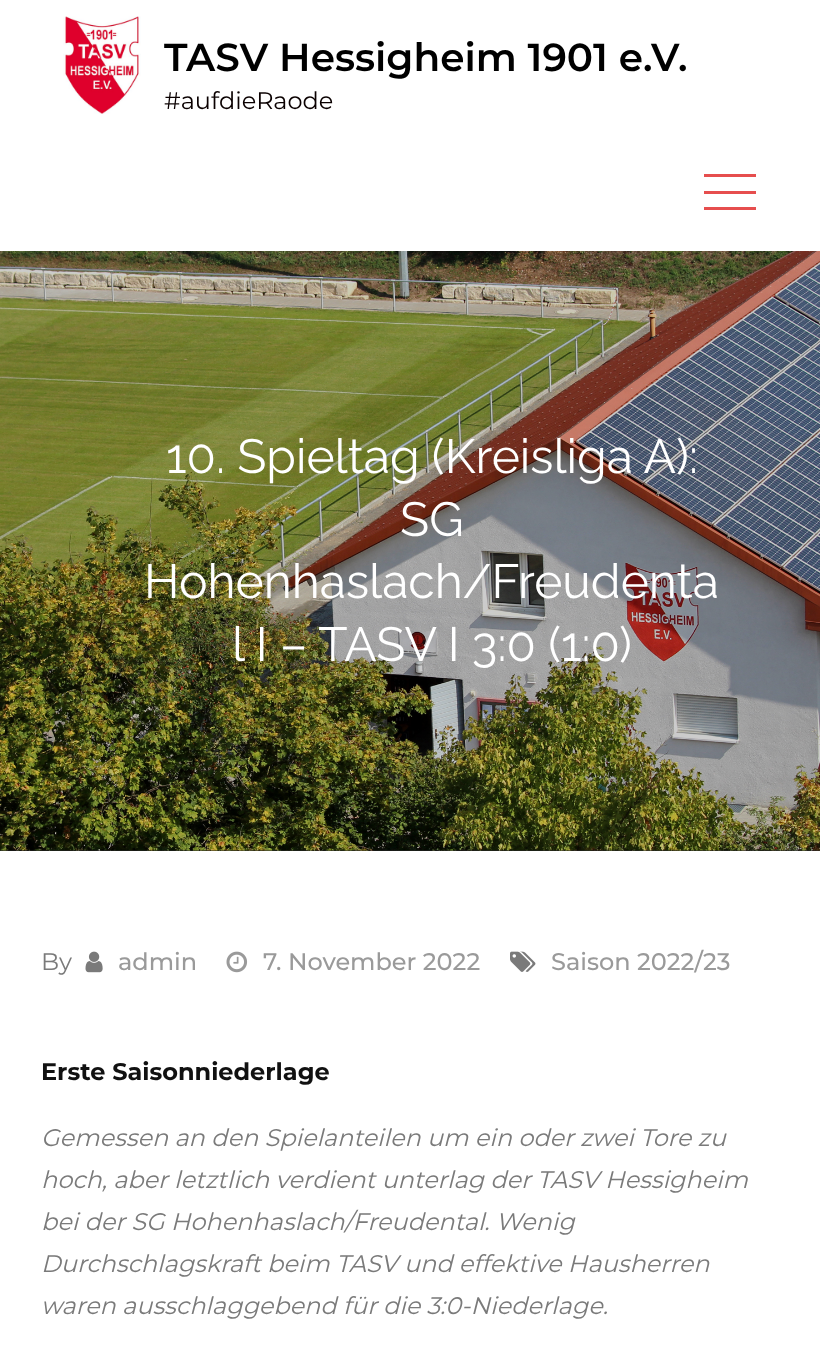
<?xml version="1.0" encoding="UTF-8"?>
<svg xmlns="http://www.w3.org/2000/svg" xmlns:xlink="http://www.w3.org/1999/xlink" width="820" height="1367">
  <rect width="100%" height="100%" fill="#ffffff" />
  <image x="63" y="16" width="78" height="98" xlink:href="image1.png" />
  <rect x="704" y="174" width="52" height="3" fill="#e64e4e" />
  <rect x="704" y="191" width="52" height="3" fill="#e64e4e" />
  <rect x="704" y="207" width="52" height="3" fill="#e64e4e" />
  <rect y="850" width="820" height="1" fill="#292929" />
  <image x="0" y="251" width="820" height="600" xlink:href="image2.png" />
  <image x="85" y="951" width="18" height="22" xlink:href="image3.png" />
  <image x="226" y="951" width="22" height="22" xlink:href="image4.png" />
  <image x="510" y="951" width="26" height="21" xlink:href="image5.png" />
  <text x="164" y="71" style="font-family: Montserrat; font-size: 39px; font-weight: 600; fill: #000000">TASV Hessigheim 1901 e.V.</text>
  <text x="164" y="109" style="font-family: Montserrat; font-size: 24px; fill: #0a0000">#aufdieRaode</text>
  <text x="166" y="473" style="font-family: Raleway; font-size: 48px; fill: #ffffff">10. Spieltag (Kreisliga A):</text>
  <text x="400" y="536" style="font-family: Raleway; font-size: 48px; fill: #ffffff">SG</text>
  <text x="144" y="598" style="font-family: Raleway; font-size: 48px; fill: #ffffff">Hohenhaslach/Freudenta</text>
  <text x="232" y="661" style="font-family: Raleway; font-size: 48px; fill: #ffffff">l I – TASV I 3:0 (1:0)</text>
  <text x="41" y="970" style="font-family: Montserrat; font-size: 24px; fill: #7a7a7a">By</text>
  <text x="118" y="970" style="font-family: Montserrat; font-size: 24px; font-weight: 500; fill: #9a9a9a">admin</text>
  <text x="263" y="970" style="font-family: Montserrat; font-size: 24px; font-weight: 500; fill: #9a9a9a">7. November 2022</text>
  <text x="551" y="970" style="font-family: Montserrat; font-size: 24px; font-weight: 500; fill: #9a9a9a">Saison 2022/23</text>
  <text x="41" y="1080" style="font-family: Montserrat; font-size: 24px; font-weight: bold; fill: #111111">Erste Saisonniederlage</text>
  <text x="41" y="1146" style="font-family: Montserrat; font-size: 24px; font-style: italic; fill: #7a7a7a">Gemessen an den Spielanteilen um ein oder zwei Tore zu</text>
  <text x="41" y="1188" style="font-family: Montserrat; font-size: 24px; font-style: italic; fill: #7a7a7a">hoch, aber letztlich verdient unterlag der TASV Hessigheim</text>
  <text x="41" y="1230" style="font-family: Montserrat; font-size: 24px; font-style: italic; fill: #7a7a7a">bei der SG Hohenhaslach/Freudental. Wenig</text>
  <text x="41" y="1272" style="font-family: Montserrat; font-size: 24px; font-style: italic; fill: #7a7a7a">Durchschlagskraft beim TASV und effektive Hausherren</text>
  <text x="41" y="1314" style="font-family: Montserrat; font-size: 24px; font-style: italic; fill: #7a7a7a">waren ausschlaggebend für die 3:0-Niederlage.</text>
</svg>
